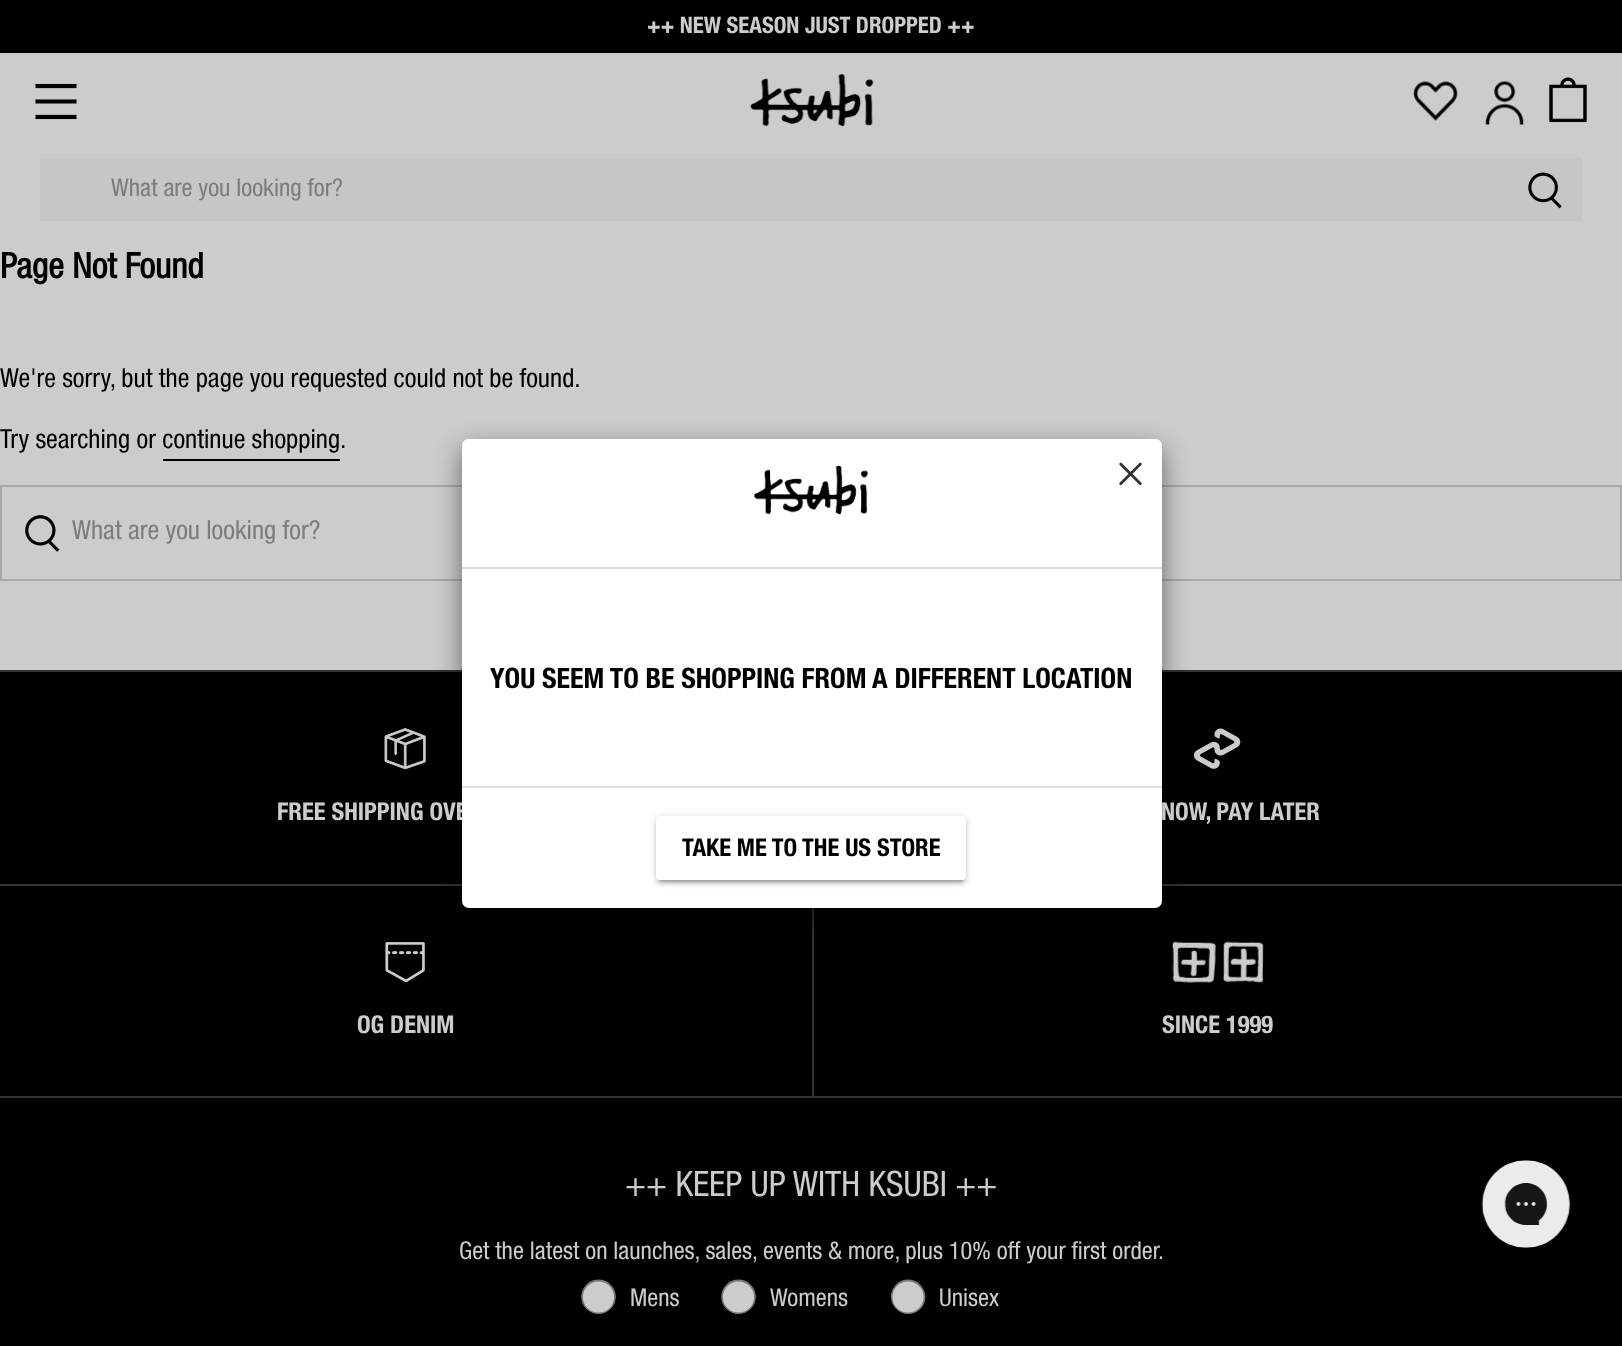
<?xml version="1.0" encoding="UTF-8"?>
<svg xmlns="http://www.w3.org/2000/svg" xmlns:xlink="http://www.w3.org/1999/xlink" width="1622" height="1346">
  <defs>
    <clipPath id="clip1"><rect x="581" y="1279" width="35" height="35" rx="17.5" /></clipPath>
    <clipPath id="clip2"><rect x="721" y="1279" width="35" height="35" rx="17.5" /></clipPath>
    <clipPath id="clip3"><rect x="891" y="1279" width="35" height="35" rx="17.5" /></clipPath>
  </defs>
  <rect width="100%" height="100%" fill="#cccccc" />
  <rect width="1622" height="53" fill="#000000" />
  <image x="35" y="83" width="42" height="37" xlink:href="image1.png" />
  <image x="750" y="74" width="124" height="52" xlink:href="image2.png" />
  <image x="1413" y="81" width="45" height="40" xlink:href="image3.png" />
  <image x="1485" y="81" width="39" height="44" xlink:href="image4.png" />
  <image x="1549" y="77" width="38" height="46" xlink:href="image5.png" />
  <rect x="40" y="158" width="1542" height="63" fill="#c6c6c6" />
  <image x="1528" y="172" width="34" height="37" xlink:href="image6.png" />
  <rect x="163" y="459" width="177" height="2" fill="#000000" />
  <rect x="1" y="486" width="1620" height="94" fill="none" stroke="#a9a9a9" stroke-width="2" />
  <image x="25" y="515" width="35" height="37" xlink:href="image7.png" />
  <rect y="672" width="462" height="212" fill="#000000" />
  <rect y="670" width="462" height="2" fill="#323232" />
  <image x="384" y="728" width="42" height="42" xlink:href="image10.png" />
  <rect x="1162" y="672" width="460" height="212" fill="#000000" />
  <rect x="1162" y="670" width="460" height="2" fill="#323232" />
  <image x="1194" y="728" width="47" height="41" xlink:href="image11.png" />
  <rect y="886" width="812" height="210" fill="#000000" />
  <rect y="884" width="462" height="2" fill="#323232" />
  <image x="385" y="942" width="40" height="40" xlink:href="image12.png" />
  <rect x="814" y="886" width="808" height="210" fill="#000000" />
  <rect x="1162" y="884" width="460" height="2" fill="#323232" />
  <rect x="812" y="908" width="2" height="188" fill="#323232" />
  <image x="1172" y="941" width="92" height="42" xlink:href="image13.png" />
  <rect x="462" y="448" width="700" height="469" rx="7" fill="#000000" fill-opacity="0.5" filter="blur(13px)" />
  <rect y="1098" width="1622" height="248" fill="#000000" />
  <rect y="1096" width="1622" height="2" fill="#323232" />
  <circle cx="598.5" cy="1297" r="16.5" fill="#cccccc" />
  <g clip-path="url(#clip1)">
    <circle cx="598.5" cy="1297" r="16.5" fill="none" stroke="#767778" stroke-width="1.8" />
  </g>
  <circle cx="738.5" cy="1297" r="16.5" fill="#cccccc" />
  <g clip-path="url(#clip2)">
    <circle cx="738.5" cy="1297" r="16.5" fill="none" stroke="#767778" stroke-width="1.8" />
  </g>
  <circle cx="908" cy="1297" r="16.5" fill="#cccccc" />
  <g clip-path="url(#clip3)">
    <circle cx="908" cy="1297" r="16.5" fill="none" stroke="#767778" stroke-width="1.8" />
  </g>
  <image x="1481" y="1160" width="89" height="88" xlink:href="image14.png" />
  <text x="647" y="33" style="font-family: Helvetica Neue; font-size: 22.75px; font-weight: bold; fill: #cccccc">++ NEW SEASON JUST DROPPED ++</text>
  <text x="111" y="196" style="font-family: Helvetica Neue; font-size: 24.5px; fill: #7c7c7c">What are you looking for?</text>
  <text x="0" y="278" style="font-family: 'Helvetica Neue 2'; font-size: 35px; font-weight: bold; fill: #000000">Page Not Found</text>
  <text x="0" y="387" style="font-family: Helvetica Neue; font-size: 26.25px; fill: #000000">We're sorry, but the page you requested could not be found.</text>
  <text x="0" y="448" style="font-family: Helvetica Neue; font-size: 26.25px; fill: #000000">Try searching or continue shopping</text>
  <text x="340" y="448" style="font-family: Helvetica Neue; font-size: 26.25px; fill: #000000">.</text>
  <text x="72" y="539" style="font-family: Helvetica Neue; font-size: 26.25px; fill: #7c7c7c">What are you looking for?</text>
  <text x="277" y="820" style="font-family: Helvetica Neue; font-size: 24.5px; font-weight: bold; fill: #cccccc">FREE SHIPPING OVE</text>
  <rect x="462" y="439" width="700" height="469" rx="7" fill="#ffffff" />
  <path d="M 469 439 h 686 c 4 0 7 3 7 7 v 123 h -700 v -123 c 0 -4 3 -7 7 -7 z" fill="#ffffff" />
  <image x="1119" y="462" width="23" height="24" xlink:href="image9.png" />
  <text x="490" y="688" style="font-family: Helvetica Neue; font-size: 28px; font-weight: bold; fill: #000000">YOU SEEM TO BE SHOPPING FROM A DIFFERENT LOCATION</text>
  <image x="754" y="465" width="114" height="50" xlink:href="image8.png" />
  <rect x="656" y="819" width="310" height="65" rx="4" fill="#000000" fill-opacity="0.14" filter="blur(2px)" />
  <rect x="660" y="824" width="303" height="58" fill="#000000" fill-opacity="0.2" filter="blur(1px)" />
  <rect x="656" y="817" width="310" height="65" rx="4" fill="#000000" fill-opacity="0.12" filter="blur(4.5px)" />
  <rect x="656" y="816" width="310" height="64" rx="4" fill="#ffffff" />
  <text x="682" y="856" style="font-family: Helvetica Neue; font-size: 24.5px; font-weight: bold; fill: #000000">TAKE ME TO THE US STORE</text>
  <rect x="462" y="786" width="700" height="2" fill="#dddddd" />
  <rect x="462" y="567" width="700" height="2" fill="#dddddd" />
  <text x="1161" y="820" style="font-family: Helvetica Neue; font-size: 24.5px; font-weight: bold; fill: #cccccc">NOW, PAY LATER</text>
  <text x="357" y="1033" style="font-family: Helvetica Neue; font-size: 24.5px; font-weight: bold; fill: #cccccc">OG DENIM</text>
  <text x="1162" y="1033" style="font-family: Helvetica Neue; font-size: 24.5px; font-weight: bold; fill: #cccccc">SINCE 1999</text>
  <text x="625" y="1196" style="font-family: Helvetica Neue; font-size: 35px; fill: #cccccc">++ KEEP UP WITH KSUBI ++</text>
  <text x="459" y="1259" style="font-family: Helvetica Neue; font-size: 24.5px; fill: #cccccc">Get the latest on launches, sales, events &amp; more, plus 10% off your first order.</text>
  <text x="630" y="1306" style="font-family: Helvetica Neue; font-size: 24.5px; fill: #cccccc">Mens</text>
  <text x="770" y="1306" style="font-family: Helvetica Neue; font-size: 24.5px; fill: #cccccc">Womens</text>
  <text x="939" y="1306" style="font-family: Helvetica Neue; font-size: 24.5px; fill: #cccccc">Unisex</text>
</svg>
